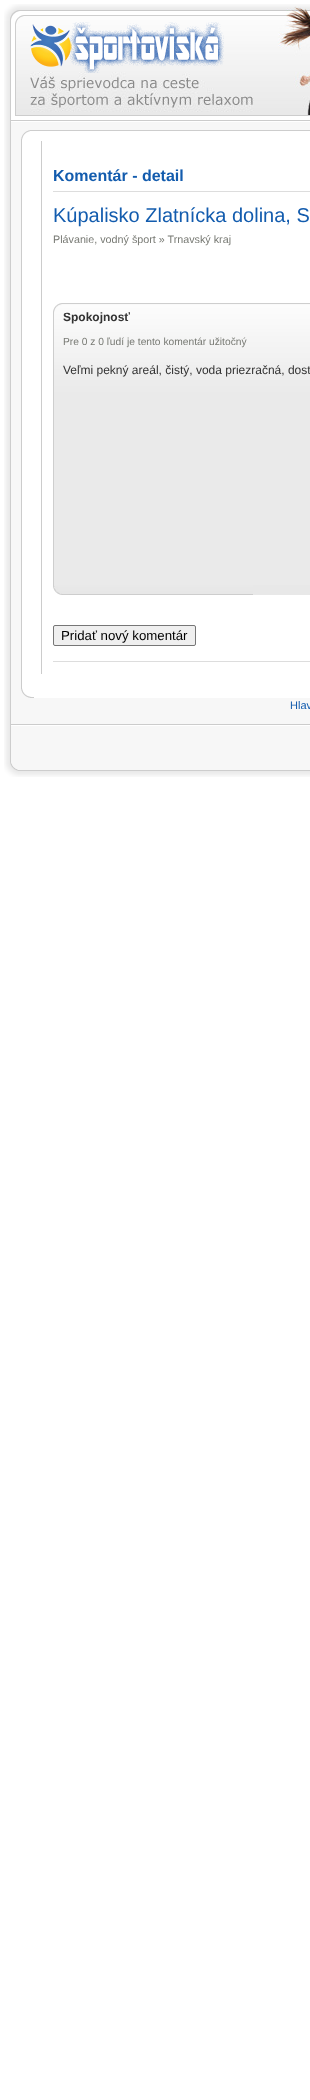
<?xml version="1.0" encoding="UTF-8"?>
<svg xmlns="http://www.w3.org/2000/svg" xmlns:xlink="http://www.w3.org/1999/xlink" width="310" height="2100">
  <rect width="100%" height="100%" fill="#ffffff" />
  <rect x="11" y="122" width="299" height="602" fill="#f7f7f7" />
  <image x="0" y="115" width="11" height="609" xlink:href="image1.png" />
  <image x="0" y="0" width="310" height="115" xlink:href="image2.png" />
  <image x="0" y="4" width="24" height="111" xlink:href="image3.png" />
  <image x="30" y="6" width="280" height="109" xlink:href="image4.png" />
  <image x="30" y="22" width="194" height="51" xlink:href="image5.png" />
  <image x="11" y="115" width="299" height="7" xlink:href="image6.png" />
  <rect x="11" y="115" width="4" height="1" fill="#ffffff" />
  <rect x="22" y="131" width="288" height="557" fill="#ffffff" />
  <rect x="30" y="130" width="280" height="1" fill="#cdcdcd" />
  <image x="21" y="130" width="9" height="10" xlink:href="image7.png" />
  <rect x="21" y="140" width="1" height="550" fill="#cccccc" />
  <rect x="41" y="141" width="1" height="533" fill="#cccccc" />
  <rect x="53" y="191" width="257" height="1" fill="#dddddd" />
  <image x="62" y="303" width="248" height="282" xlink:href="image8.png" />
  <image x="53" y="303" width="9" height="282" xlink:href="image9.png" />
  <rect x="253" y="585" width="57" height="10" fill="#e8e8e8" />
  <image x="53" y="585" width="200" height="10" xlink:href="image10.png" />
  <rect x="53.5" y="625.5" width="142" height="20" rx="1.5" fill="#efefef" stroke="#767676" />
  <rect x="53" y="661" width="257" height="1" fill="#dddddd" />
  <rect x="34" y="688" width="276" height="10" fill="#ffffff" />
  <image x="21" y="688" width="13" height="10" xlink:href="image11.png" />
  <image x="0" y="724" width="310" height="57" xlink:href="image12.png" />
  <image x="0" y="724" width="18" height="53" xlink:href="image13.png" />
  <text x="53" y="181" style="font-family: Liberation Sans; font-size: 16px; font-weight: bold; fill: #135cae">Komentár - detail</text>
  <text x="53" y="222" style="font-family: Liberation Sans; font-size: 20px; fill: #135cae">Kúpalisko Zlatnícka dolina, S</text>
  <text x="53" y="243" style="font-family: Liberation Sans; font-size: 10.75px; fill: #787a74">Plávanie, vodný šport » Trnavský kraj</text>
  <text x="63" y="321" style="font-family: Liberation Sans; font-size: 12px; font-weight: bold; fill: #333333">Spokojnosť</text>
  <text x="63" y="345" style="font-family: Liberation Sans; font-size: 10.25px; fill: #787a74">Pre 0 z 0 ľudí je tento komentár užitočný</text>
  <text x="63" y="374" style="font-family: Liberation Sans; font-size: 12px; fill: #333333">Veľmi pekný areál, čistý, voda priezračná, dost</text>
  <text x="61" y="640" style="font-family: Liberation Sans; font-size: 13.25px; fill: #000000">Pridať nový komentár</text>
  <text x="290" y="709" style="font-family: Liberation Sans; font-size: 11px; fill: #135cae">Hlav</text>
</svg>
